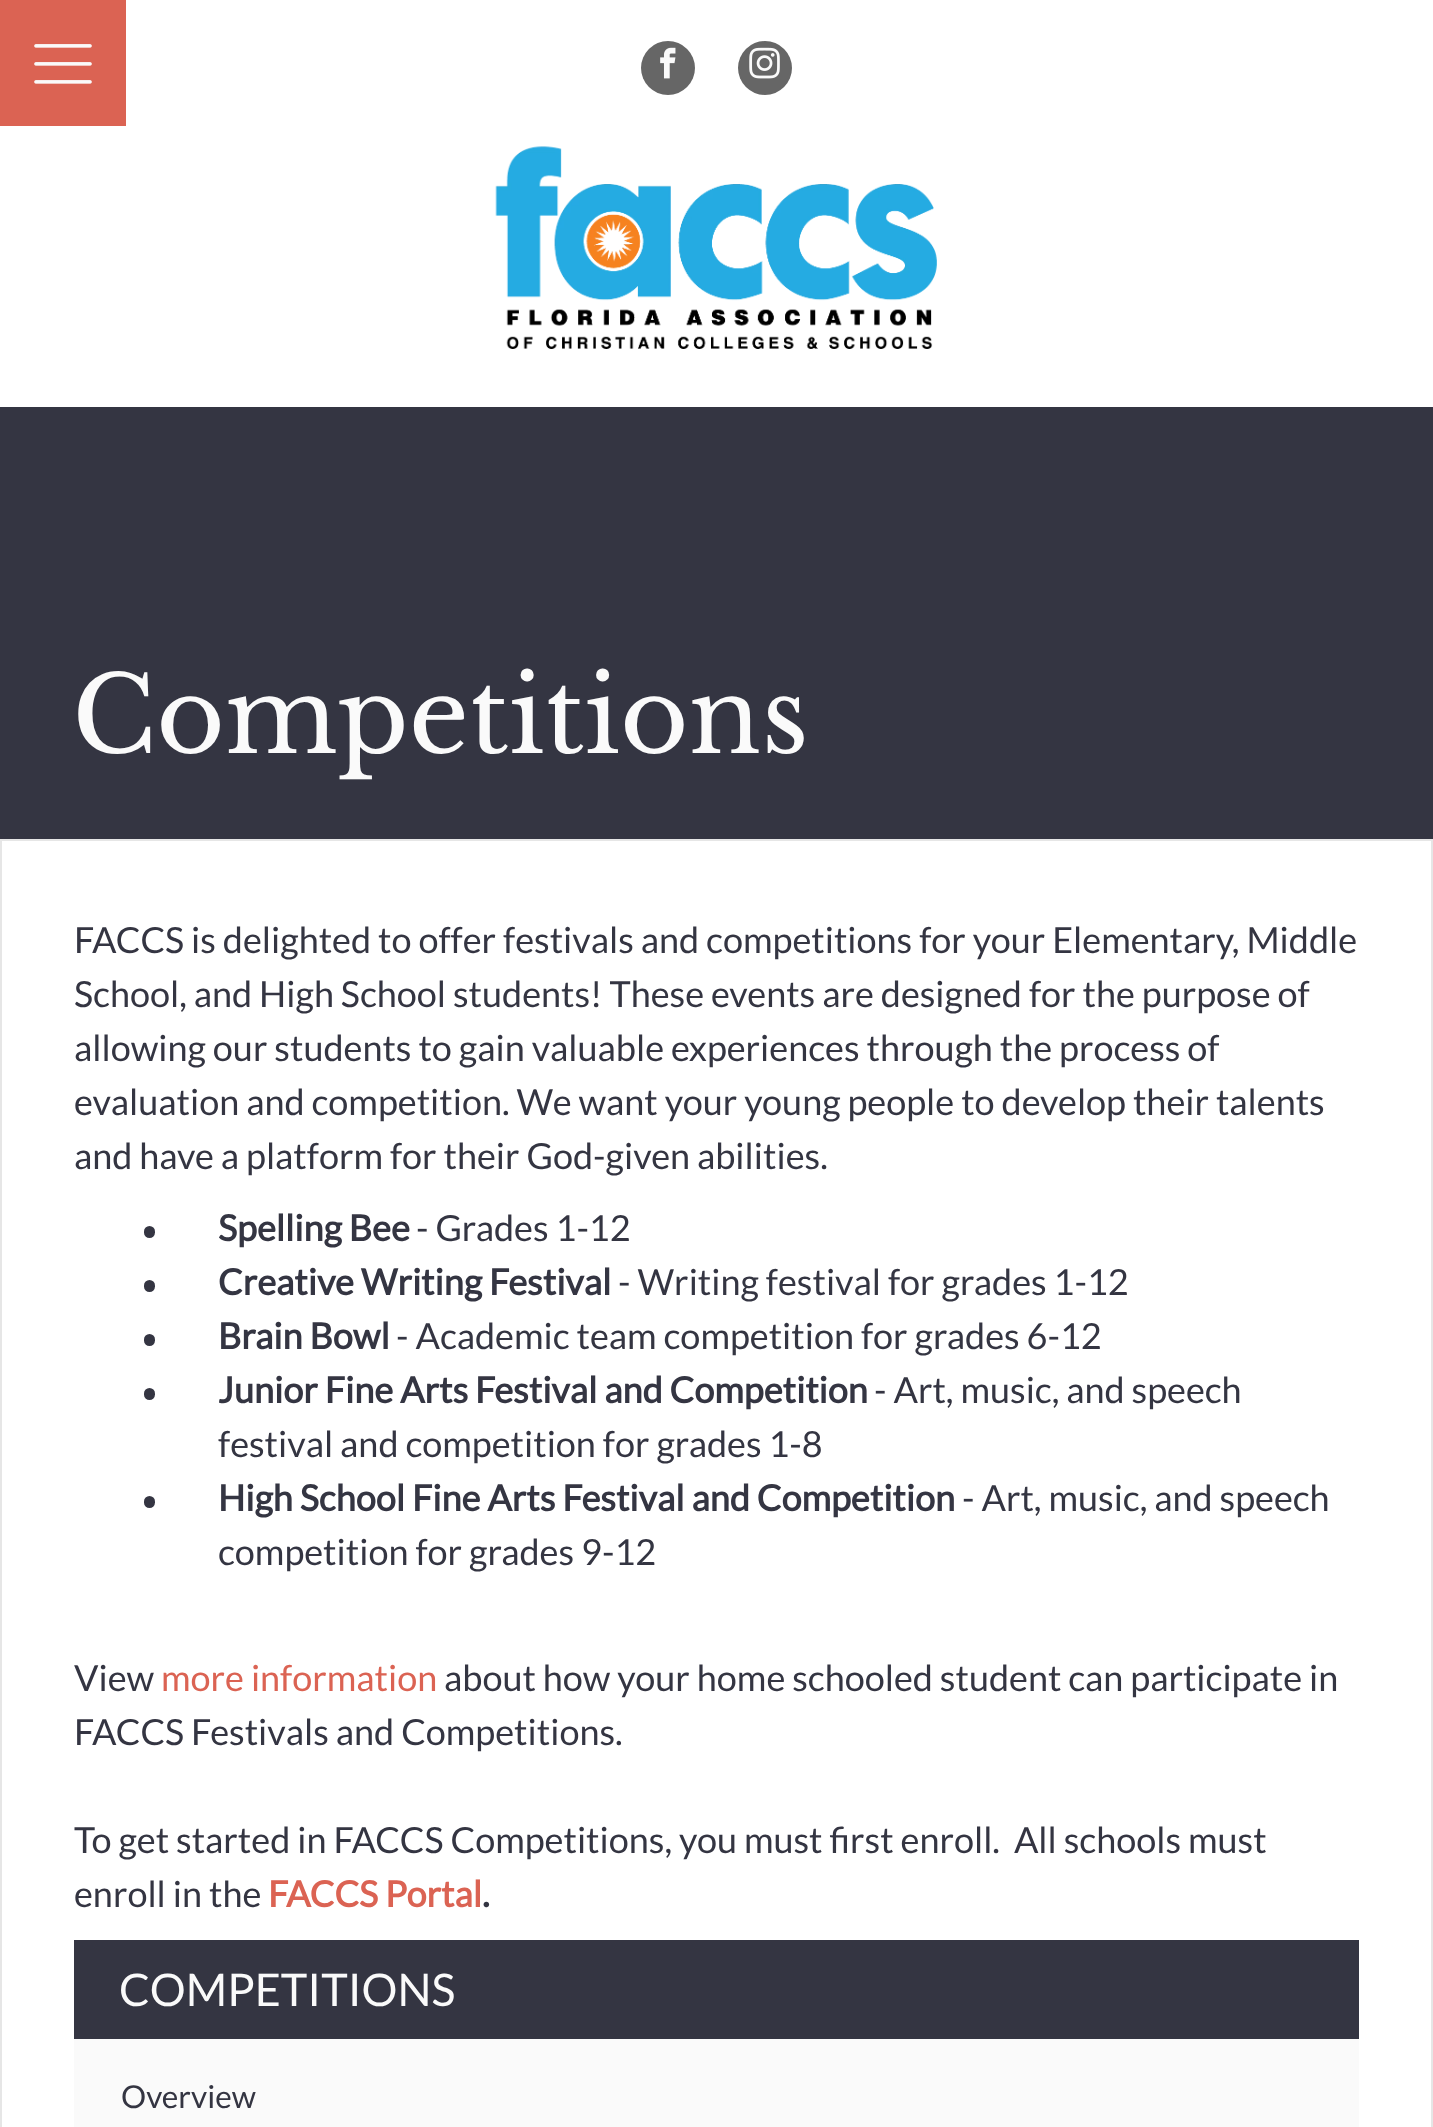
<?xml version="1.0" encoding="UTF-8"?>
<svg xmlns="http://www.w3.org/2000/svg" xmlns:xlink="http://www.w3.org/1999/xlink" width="1433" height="2127">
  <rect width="100%" height="100%" fill="#ffffff" />
  <rect width="126" height="126" fill="#db6353" />
  <image x="34" y="44" width="58" height="40" xlink:href="image1.png" />
  <circle cx="668" cy="68" r="27" fill="#666666" />
  <image x="660" y="47" width="16" height="32" xlink:href="image2.png" />
  <circle cx="765" cy="68" r="27" fill="#666666" />
  <image x="749" y="47" width="31" height="32" xlink:href="image3.png" />
  <image x="495" y="146" width="442" height="203" xlink:href="image4.png" />
  <rect y="407" width="1433" height="432" fill="#343542" />
  <rect x="1" y="840" width="1431" height="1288" fill="none" stroke="#e6e6e6" stroke-width="2" />
  <rect x="144" y="1226" width="11" height="12" rx="5.5" fill="#343542" />
  <rect x="144" y="1280" width="11" height="12" rx="5.5" fill="#343542" />
  <rect x="144" y="1334" width="11" height="12" rx="5.5" fill="#343542" />
  <rect x="144" y="1388" width="11" height="12" rx="5.5" fill="#343542" />
  <rect x="144" y="1496" width="11" height="12" rx="5.5" fill="#343542" />
  <rect x="74" y="2039" width="1285" height="88" fill="#fafafa" />
  <rect x="74" y="1940" width="1285" height="99" fill="#343542" />
  <text x="72" y="753" style="font-family: Libre Baskerville; font-size: 105px; fill: #fafafa">Competitions</text>
  <text x="74" y="953" style="font-family: Lato; font-size: 36px; fill: #343542">FACCS is delighted to offer festivals and competitions for your Elementary, Middle</text>
  <text x="74" y="1007" style="font-family: Lato; font-size: 36px; fill: #343542">School, and High School students! These events are designed for the purpose of</text>
  <text x="74" y="1061" style="font-family: Lato; font-size: 36px; fill: #343542">allowing our students to gain valuable experiences through the process of</text>
  <text x="74" y="1115" style="font-family: Lato; font-size: 36px; fill: #343542">evaluation and competition. We want your young people to develop their talents</text>
  <text x="74" y="1169" style="font-family: Lato; font-size: 36px; fill: #343542">and have a platform for their God-given abilities.</text>
  <text x="218" y="1241" style="font-family: Lato; font-size: 36px; font-weight: bold; fill: #343542">Spelling Bee</text>
  <text x="416" y="1241" style="font-family: Lato; font-size: 36px; fill: #343542">- Grades 1-12</text>
  <text x="218" y="1295" style="font-family: Lato; font-size: 36px; font-weight: bold; fill: #343542">Creative Writing Festival</text>
  <text x="618" y="1295" style="font-family: Lato; font-size: 36px; fill: #343542">- Writing festival for grades 1-12</text>
  <text x="218" y="1349" style="font-family: Lato; font-size: 36px; font-weight: bold; fill: #343542">Brain Bowl</text>
  <text x="396" y="1349" style="font-family: Lato; font-size: 36px; fill: #343542">- Academic team competition for grades 6-12</text>
  <text x="218" y="1403" style="font-family: Lato; font-size: 36px; font-weight: bold; fill: #343542">Junior Fine Arts Festival and Competition</text>
  <text x="874" y="1403" style="font-family: Lato; font-size: 36px; fill: #343542">- Art, music, and speech</text>
  <text x="218" y="1457" style="font-family: Lato; font-size: 36px; fill: #343542">festival and competition for grades 1-8</text>
  <text x="218" y="1511" style="font-family: Lato; font-size: 36px; font-weight: bold; fill: #343542">High School Fine Arts Festival and Competition</text>
  <text x="962" y="1511" style="font-family: Lato; font-size: 36px; fill: #343542">- Art, music, and speech</text>
  <text x="218" y="1565" style="font-family: Lato; font-size: 36px; fill: #343542">competition for grades 9-12</text>
  <text x="74" y="1691" style="font-family: Lato; font-size: 36px; fill: #343542">View</text>
  <text x="161" y="1691" style="font-family: Lato; font-size: 36px; fill: #db6353">more information</text>
  <text x="444" y="1691" style="font-family: Lato; font-size: 36px; fill: #343542">about how your home schooled student can participate in</text>
  <text x="74" y="1745" style="font-family: Lato; font-size: 36px; fill: #343542">FACCS Festivals and Competitions.</text>
  <text x="74" y="1853" style="font-family: Lato; font-size: 36px; fill: #343542" xml:space="preserve">To get started in FACCS Competitions, you must first enroll.  All schools must</text>
  <text x="74" y="1907" style="font-family: Lato; font-size: 36px; fill: #343542">enroll in the</text>
  <text x="268" y="1907" style="font-family: Lato; font-size: 36px; font-weight: bold; fill: #db6353">FACCS Portal</text>
  <text x="482" y="1907" style="font-family: Lato; font-size: 36px; font-weight: bold; fill: #343542">.</text>
  <text x="119" y="2006" style="font-family: Lato; font-size: 45px; fill: #fafafa">COMPETITIONS</text>
  <text x="121" y="2108" style="font-family: Lato; font-size: 31.5px; fill: #343542">Overview</text>
</svg>
